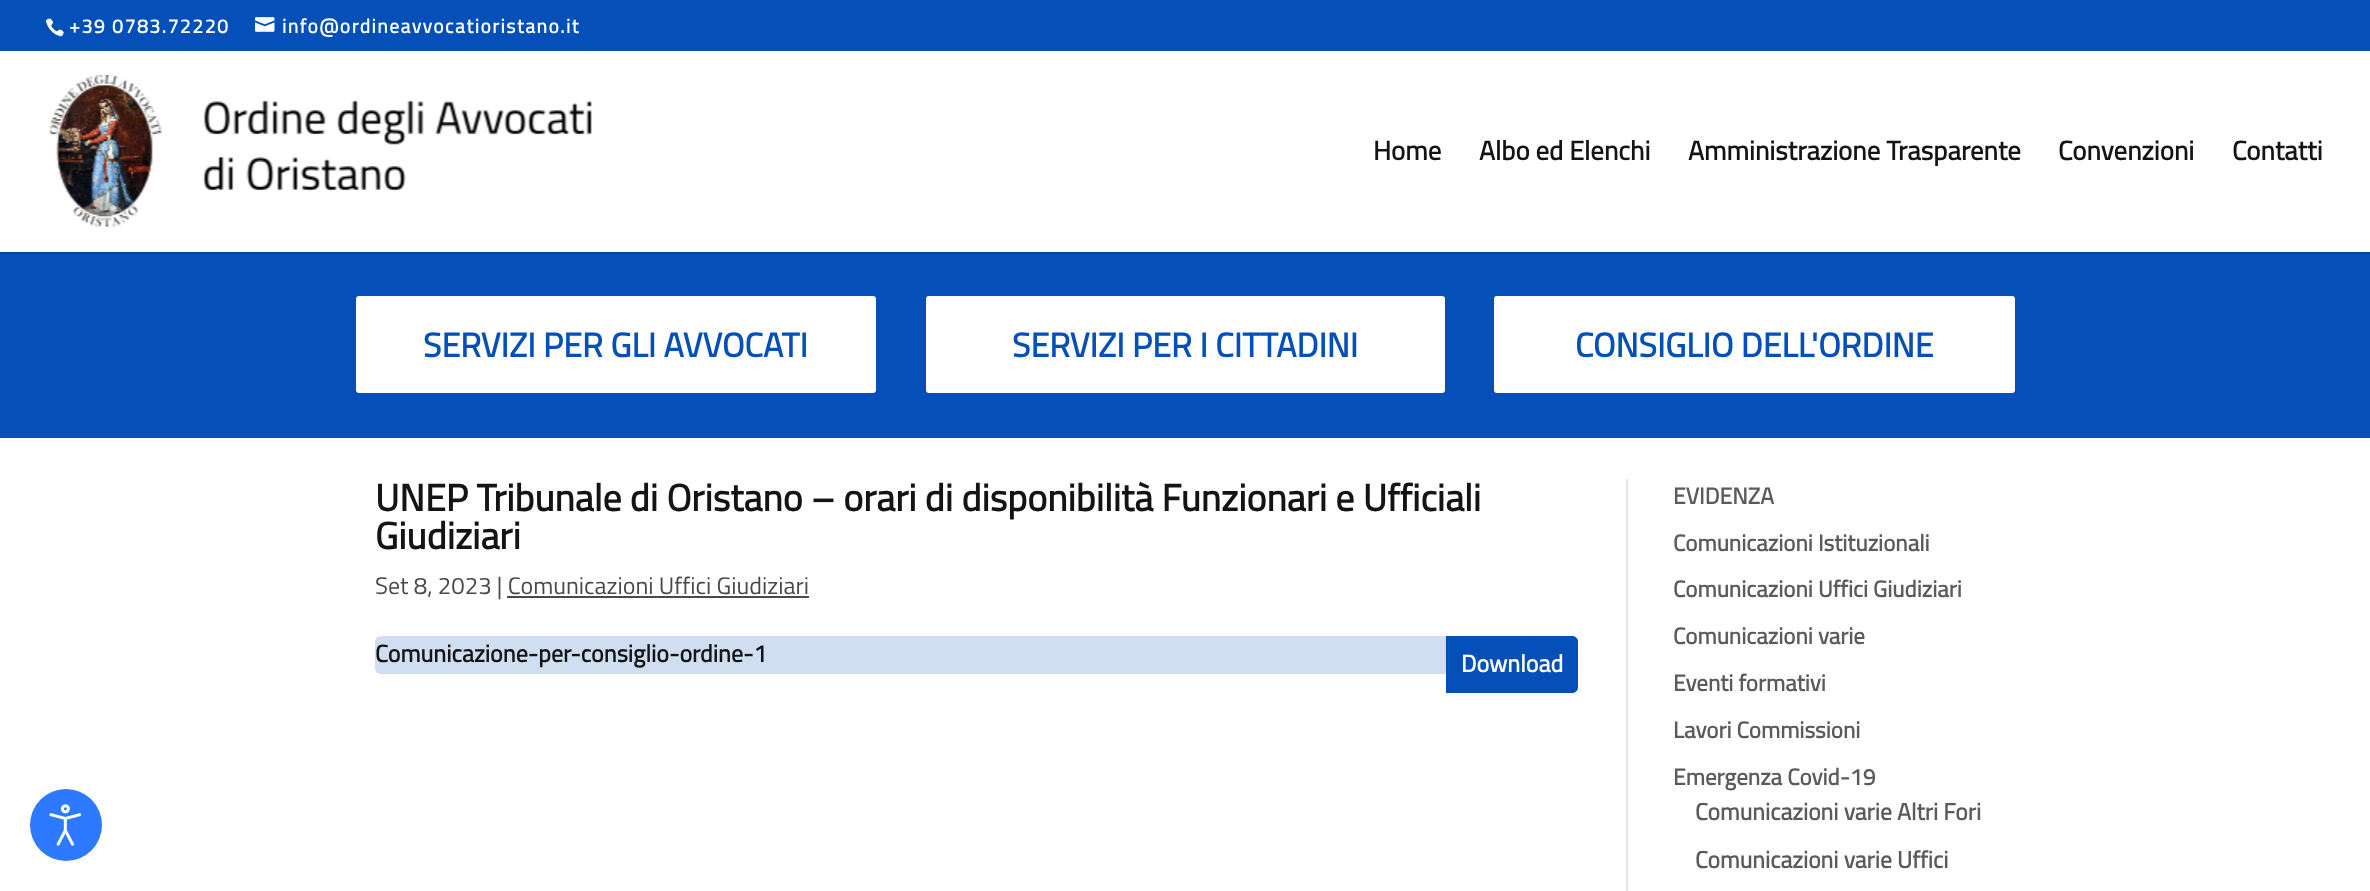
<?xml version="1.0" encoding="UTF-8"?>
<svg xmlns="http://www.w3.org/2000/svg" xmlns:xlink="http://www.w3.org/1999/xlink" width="2370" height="891">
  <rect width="100%" height="100%" fill="#054fb9" />
  <rect y="438" width="2370" height="453" fill="#ffffff" />
  <circle cx="66" cy="825" r="36" fill="#2d79ff" />
  <image x="49" y="804" width="33" height="42" xlink:href="image1.png" />
  <image x="45" y="18" width="19" height="19" xlink:href="image2.png" />
  <image x="255" y="17" width="20" height="15" xlink:href="image3.png" />
  <rect y="252" width="2370" height="2" fill="#0547a7" />
  <rect y="51" width="2370" height="201" fill="#ffffff" />
  <image x="50" y="75" width="542" height="152" xlink:href="image4.png" />
  <rect x="356" y="296" width="520" height="97" rx="3" fill="#ffffff" />
  <rect x="926" y="296" width="519" height="97" rx="3" fill="#ffffff" />
  <rect x="1494" y="296" width="521" height="97" rx="3" fill="#ffffff" />
  <rect x="507" y="596" width="302" height="2" fill="#494949" />
  <rect x="375" y="636" width="1203" height="38" rx="6" fill="#d0def2" />
  <path d="M 1446 636 h 126 c 3.5 0 6 2.5 6 6 v 45 c 0 3.5 -2.5 6 -6 6 h -126 z" fill="#054fb9" />
  <rect x="1626" y="479" width="2" height="412" fill="#e6e6e6" />
  <text x="69" y="33" style="font-family: Titillium Web; font-size: 19.5px; font-weight: bold; letter-spacing: 1.5px; fill: #ffffff">+39 0783.72220</text>
  <text x="282" y="33" style="font-family: Titillium Web; font-size: 19.5px; font-weight: bold; letter-spacing: 1.5px; fill: #ffffff">info@ordineavvocatioristano.it</text>
  <text x="1373" y="160" style="font-family: Titillium Web; font-size: 26.9px; font-weight: bold; fill: #141414">Home</text>
  <text x="1479" y="160" style="font-family: Titillium Web; font-size: 26.9px; font-weight: bold; fill: #141414">Albo ed Elenchi</text>
  <text x="1688" y="160" style="font-family: Titillium Web; font-size: 26.9px; font-weight: bold; fill: #141414">Amministrazione Trasparente</text>
  <text x="2058" y="160" style="font-family: Titillium Web; font-size: 26.9px; font-weight: bold; fill: #141414">Convenzioni</text>
  <text x="2232" y="160" style="font-family: Titillium Web; font-size: 26.9px; font-weight: bold; fill: #141414">Contatti</text>
  <text x="423" y="357" style="font-family: Titillium Web; font-size: 34px; font-weight: bold; fill: #054fb9">SERVIZI PER GLI AVVOCATI</text>
  <text x="1012" y="357" style="font-family: Titillium Web; font-size: 34px; font-weight: bold; fill: #054fb9">SERVIZI PER I CITTADINI</text>
  <text x="1575" y="357" style="font-family: Titillium Web; font-size: 34px; font-weight: bold; fill: #054fb9">CONSIGLIO DELL'ORDINE</text>
  <text x="375" y="511" style="font-family: Titillium Web; font-size: 37.8px; font-weight: bold; fill: #141414">UNEP Tribunale di Oristano – orari di disponibilità Funzionari e Ufficiali</text>
  <text x="375" y="549" style="font-family: Titillium Web; font-size: 37.8px; font-weight: bold; fill: #141414">Giudiziari</text>
  <text x="375" y="594" style="font-family: Titillium Web; font-size: 24px; fill: #494949">Set 8, 2023 | Comunicazioni Uffici Giudiziari</text>
  <text x="375" y="662" style="font-family: Titillium Web; font-size: 24px; font-weight: bold; fill: #141414">Comunicazione-per-consiglio-ordine-1</text>
  <text x="1461" y="672" style="font-family: Titillium Web; font-size: 24px; font-weight: bold; fill: #ffffff">Download</text>
  <text x="1673" y="504" style="font-family: Titillium Web; font-size: 23px; font-weight: bold; fill: #5b5b5b">EVIDENZA</text>
  <text x="1673" y="551" style="font-family: Titillium Web; font-size: 23px; font-weight: bold; fill: #5b5b5b">Comunicazioni Istituzionali</text>
  <text x="1673" y="597" style="font-family: Titillium Web; font-size: 23px; font-weight: bold; fill: #5b5b5b">Comunicazioni Uffici Giudiziari</text>
  <text x="1673" y="644" style="font-family: Titillium Web; font-size: 23px; font-weight: bold; fill: #5b5b5b">Comunicazioni varie</text>
  <text x="1673" y="691" style="font-family: Titillium Web; font-size: 23px; font-weight: bold; fill: #5b5b5b">Eventi formativi</text>
  <text x="1673" y="738" style="font-family: Titillium Web; font-size: 23px; font-weight: bold; fill: #5b5b5b">Lavori Commissioni</text>
  <text x="1673" y="785" style="font-family: Titillium Web; font-size: 23px; font-weight: bold; fill: #5b5b5b">Emergenza Covid-19</text>
  <text x="1695" y="820" style="font-family: Titillium Web; font-size: 23.6px; font-weight: bold; fill: #5b5b5b">Comunicazioni varie Altri Fori</text>
  <text x="1695" y="868" style="font-family: Titillium Web; font-size: 23.6px; font-weight: bold; fill: #5b5b5b">Comunicazioni varie Uffici</text>
</svg>
